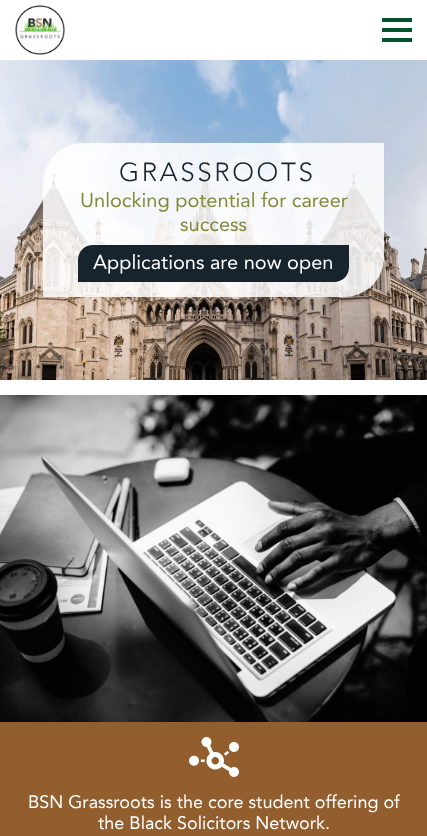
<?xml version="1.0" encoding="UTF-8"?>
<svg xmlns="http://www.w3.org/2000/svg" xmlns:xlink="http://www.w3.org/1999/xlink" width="427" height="836">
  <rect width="100%" height="100%" fill="#ffffff" />
  <image x="15" y="5" width="50" height="50" xlink:href="image1.png" />
  <rect x="382" y="18" width="30" height="4" fill="#06522c" />
  <rect x="382" y="28" width="30" height="4" fill="#06522c" />
  <rect x="382" y="38" width="30" height="4" fill="#06522c" />
  <image x="0" y="60" width="427" height="320" xlink:href="image2.png" />
  <path d="M 83 143 h 301 v 114 c 0 22 -18 40 -40 40 h -301 v -114 c 0 -22 18 -40 40 -40 z" fill="#ffffff" fill-opacity="0.85" />
  <path d="M 93 245 h 256 v 22 c 0 8.5 -6.5 15 -15 15 h -256 v -22 c 0 -8.5 6.5 -15 15 -15 z" fill="#17232d" />
  <rect y="722" width="427" height="114" fill="#935e2e" />
  <image x="0" y="395" width="427" height="327" xlink:href="image3.png" />
  <image x="189" y="737" width="50" height="40" xlink:href="image4.png" />
  <text x="119" y="181" style="font-family: Avenir; font-size: 26px; font-weight: 300; letter-spacing: 2.6px; fill: #17232d">GRASSROOTS</text>
  <text x="80" y="207" style="font-family: Avenir; font-size: 20px; fill: #848936">Unlocking potential for career</text>
  <text x="180" y="231" style="font-family: Avenir; font-size: 20px; fill: #848936">success</text>
  <text x="93" y="269" style="font-family: Avenir; font-size: 20px; fill: #ffffff">Applications are now open</text>
  <text x="28" y="808" style="font-family: Avenir; font-size: 18px; fill: #ffffff">BSN Grassroots is the core student offering of</text>
  <text x="98" y="829" style="font-family: Avenir; font-size: 18px; fill: #ffffff">the Black Solicitors Network.</text>
</svg>
